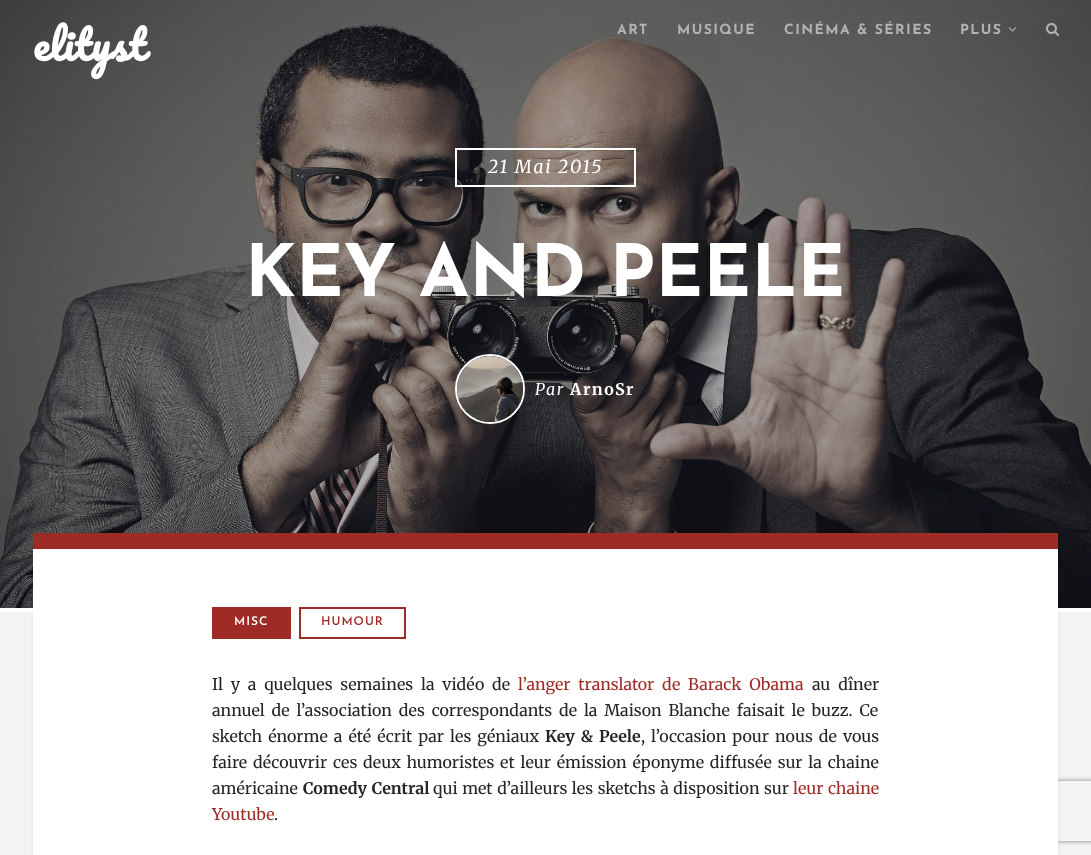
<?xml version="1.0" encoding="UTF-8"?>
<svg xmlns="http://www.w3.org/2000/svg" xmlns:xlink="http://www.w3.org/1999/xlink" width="1091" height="855">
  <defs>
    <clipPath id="clip1"><path d="M 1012 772 h 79 v 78 h -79 z m 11 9 h 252 c 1 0 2 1 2 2 v 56 c 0 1 -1 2 -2 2 h -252 c -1 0 -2 -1 -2 -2 v -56 c 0 -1 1 -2 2 -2 z" clip-rule="evenodd" /></clipPath>
  </defs>
  <rect width="100%" height="100%" fill="#f3f3f3" />
  <rect y="608" width="1091" height="4" fill="#ffffff" />
  <image x="0" y="0" width="1091" height="608" xlink:href="image1.png" />
  <image x="1008" y="27" width="9" height="5" xlink:href="image2.png" />
  <image x="1046" y="23" width="13" height="13" xlink:href="image3.png" />
  <rect x="456" y="149" width="179" height="37" fill="none" stroke="#ffffff" stroke-width="2" />
  <circle cx="490" cy="389" r="34" fill="none" stroke="#ffffff" stroke-width="2" />
  <image x="457" y="356" width="66" height="66" xlink:href="image4.png" />
  <rect x="33" y="533" width="1025" height="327" fill="#000000" fill-opacity="0.08" filter="blur(1.5px)" />
  <g clip-path="url(#clip1)">
    <rect x="1021" y="781" width="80" height="60" rx="2" fill="#808080" filter="blur(2.5px)" />
  </g>
  <rect x="33" y="549" width="1025" height="306" fill="#ffffff" />
  <rect x="33" y="533" width="1025" height="16" fill="#9e2b25" />
  <rect x="212" y="607" width="79" height="32" fill="#9e2b25" />
  <rect x="300" y="608" width="105" height="30" fill="none" stroke="#9e2b25" stroke-width="2" />
  <text x="33" y="61" style="font-family: Pacifico; font-size: 40px; font-weight: bold; letter-spacing: 1px; fill: #ffffff">elityst</text>
  <text x="617" y="34" style="font-family: Josefin Sans; font-size: 14px; font-weight: bold; letter-spacing: 1.4px; fill: #b3b3b3">ART</text>
  <text x="677" y="34" style="font-family: Josefin Sans; font-size: 14px; font-weight: bold; letter-spacing: 1.4px; fill: #b3b3b3">MUSIQUE</text>
  <text x="784" y="34" style="font-family: Josefin Sans; font-size: 14px; font-weight: bold; letter-spacing: 1.4px; fill: #b3b3b3">CINÉMA &amp; SÉRIES</text>
  <text x="960" y="34" style="font-family: Josefin Sans; font-size: 14px; font-weight: bold; letter-spacing: 1.4px; fill: #b3b3b3">PLUS</text>
  <text x="488" y="173" style="font-family: Merriweather; font-size: 18px; font-style: italic; letter-spacing: 1.75px; fill: #ffffff">21 Mai 2015</text>
  <text x="245" y="296" style="font-family: Josefin Sans; font-size: 72px; font-weight: bold; fill: #ffffff">KEY AND PEELE</text>
  <text x="535" y="395" style="font-family: Merriweather; font-size: 16px; font-style: italic; letter-spacing: 1.5px; fill: #ffffff">Par</text>
  <text x="570" y="395" style="font-family: Merriweather; font-size: 16px; font-weight: bold; letter-spacing: 1.5px; fill: #ffffff">ArnoSr</text>
  <text x="234" y="625" style="font-family: Josefin Sans; font-size: 12px; font-weight: 600; letter-spacing: 1px; fill: #ffffff">MISC</text>
  <text x="321" y="625" style="font-family: Josefin Sans; font-size: 12px; font-weight: 600; letter-spacing: 1px; fill: #9e2b25">HUMOUR</text>
  <text x="212" y="690" word-spacing="4" style="font-family: Merriweather; font-size: 16px; fill: #252525">Il y a quelques semaines la vidéo de</text>
  <text x="518" y="690" word-spacing="4" style="font-family: Merriweather; font-size: 16px; fill: #9e2b25">l’anger translator de Barack Obama</text>
  <text x="812" y="690" word-spacing="4" style="font-family: Merriweather; font-size: 16px; fill: #252525">au dîner</text>
  <text x="212" y="716" word-spacing="3" style="font-family: Merriweather; font-size: 16px; fill: #252525">annuel de l’association des correspondants de la Maison Blanche faisait le buzz. Ce</text>
  <text x="212" y="742" word-spacing="2.25" style="font-family: Merriweather; font-size: 16px; fill: #252525">sketch énorme a été écrit par les géniaux</text>
  <text x="545" y="742" word-spacing="2.25" style="font-family: Merriweather; font-size: 16px; font-weight: bold; fill: #252525">Key &amp; Peele</text>
  <text x="641" y="742" word-spacing="2.25" style="font-family: Merriweather; font-size: 16px; fill: #252525">, l’occasion pour nous de vous</text>
  <text x="212" y="768" word-spacing="2" style="font-family: Merriweather; font-size: 16px; fill: #252525">faire découvrir ces deux humoristes et leur émission éponyme diffusée sur la chaine</text>
  <text x="212" y="794" style="font-family: Merriweather; font-size: 16px; fill: #252525">américaine</text>
  <text x="303" y="794" word-spacing="1" style="font-family: Merriweather; font-size: 16px; font-weight: bold; fill: #252525">Comedy Central</text>
  <text x="433" y="794" word-spacing="0.75" style="font-family: Merriweather; font-size: 16px; fill: #252525">qui met d’ailleurs les sketchs à disposition sur</text>
  <text x="793" y="794" word-spacing="0.75" style="font-family: Merriweather; font-size: 16px; fill: #9e2b25">leur chaine</text>
  <text x="212" y="820" style="font-family: Merriweather; font-size: 16px; fill: #9e2b25">Youtube</text>
  <text x="274" y="820" style="font-family: Merriweather; font-size: 16px; fill: #252525">.</text>
</svg>
